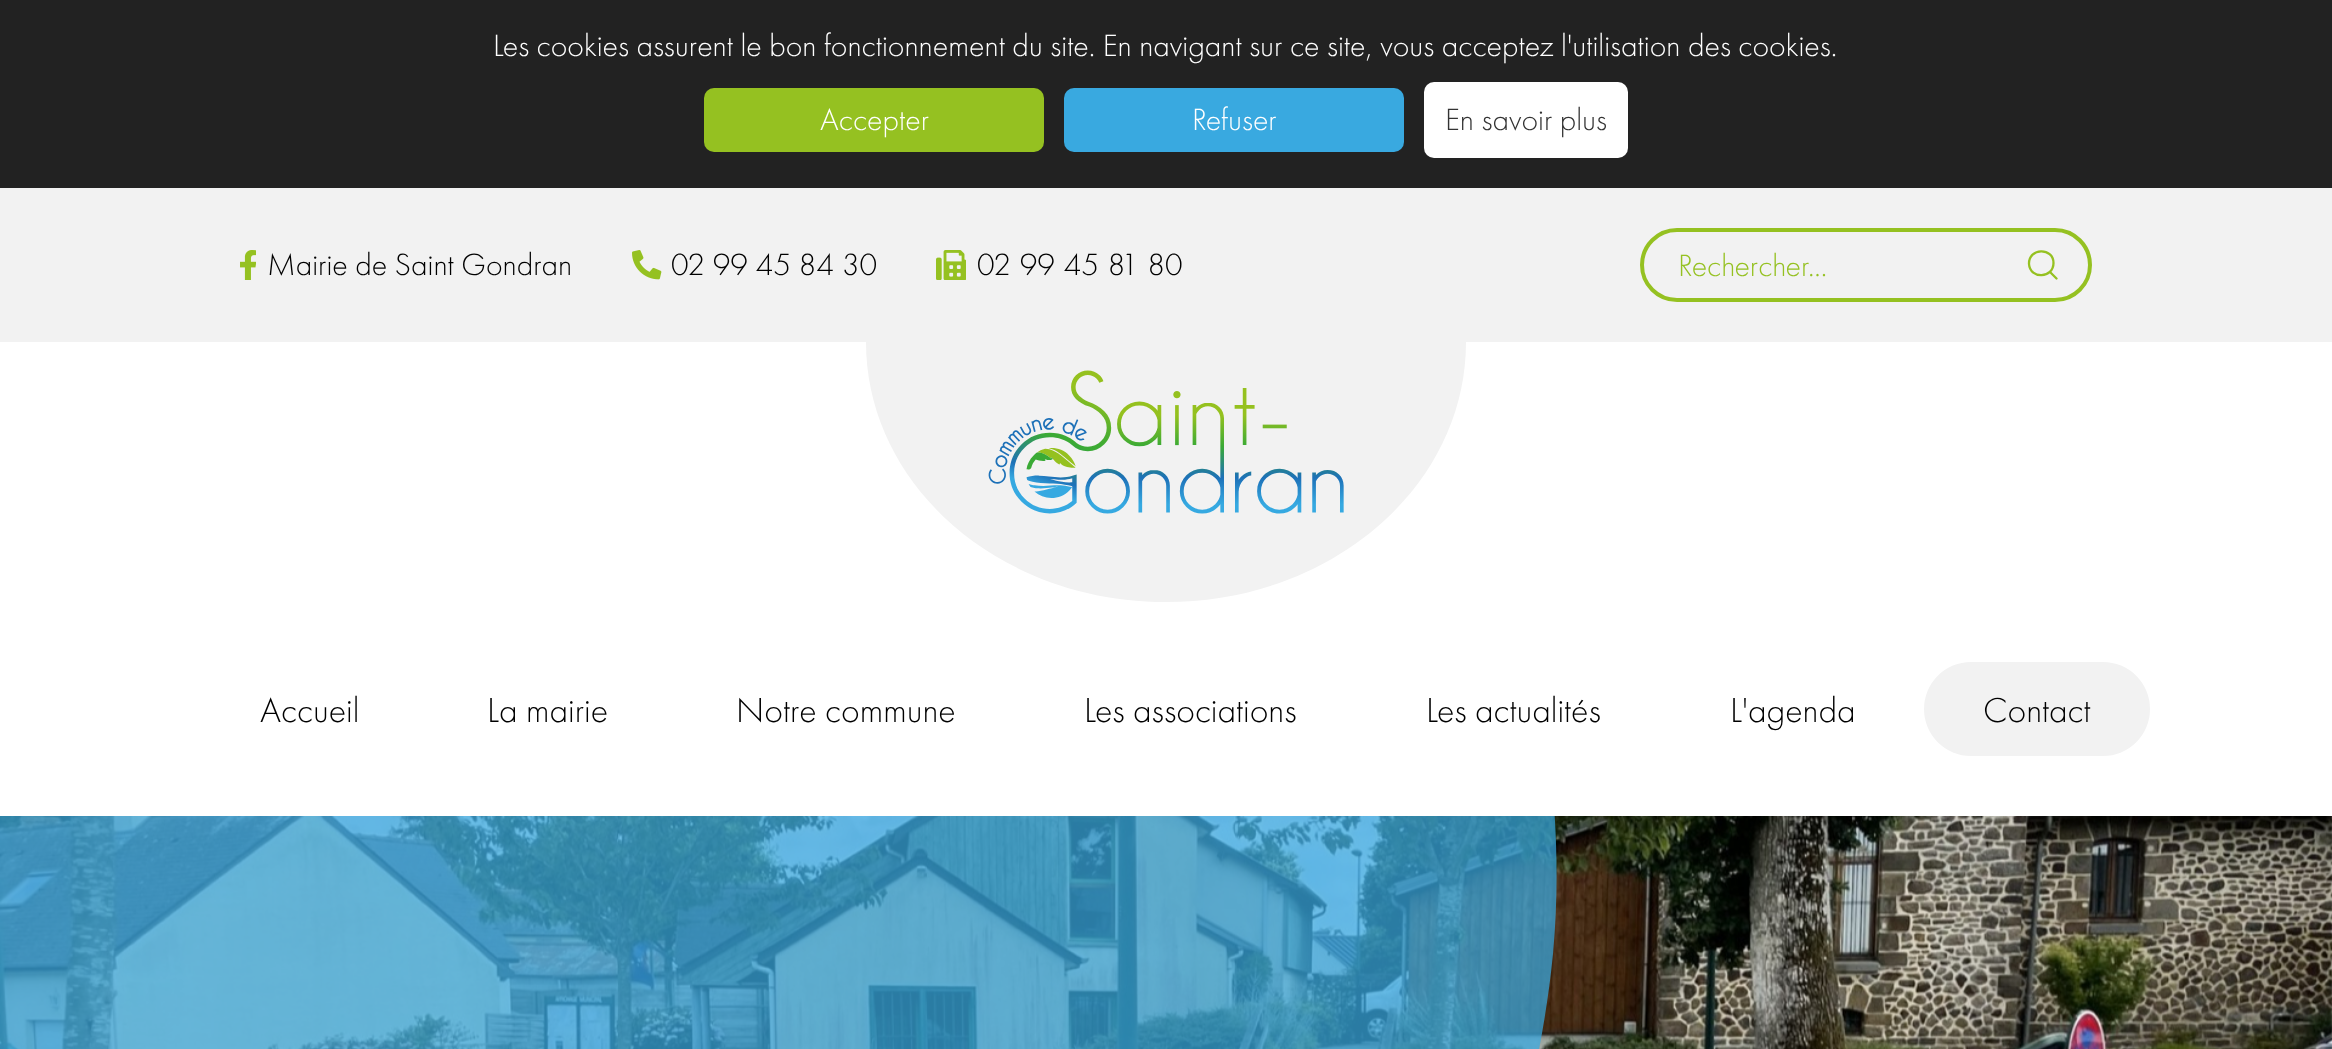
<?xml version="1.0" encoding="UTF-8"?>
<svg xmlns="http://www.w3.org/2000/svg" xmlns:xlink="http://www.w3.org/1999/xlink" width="2332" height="1049">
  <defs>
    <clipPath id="clip1"><rect y="816" width="1566" height="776" /></clipPath>
  </defs>
  <rect width="100%" height="100%" fill="#ffffff" />
  <rect width="2332" height="188" fill="#222222" />
  <rect x="704" y="88" width="340" height="64" rx="10" fill="#95c121" />
  <rect x="1064" y="88" width="340" height="64" rx="10" fill="#39a9e0" />
  <rect x="1424" y="82" width="204" height="76" rx="10" fill="#ffffff" />
  <rect y="188" width="2332" height="154" fill="#f2f2f2" />
  <image x="240" y="250" width="16" height="30" xlink:href="image1.png" />
  <image x="632" y="250" width="30" height="30" xlink:href="image2.png" />
  <image x="936" y="250" width="30" height="30" xlink:href="image3.png" />
  <rect x="1642" y="230" width="448" height="70" rx="35" fill="none" stroke="#95c121" stroke-width="4" />
  <path d="M 2053.5 263 c 0 15.5 -23.5 16.5 -24.5 1 c -0.5 -16.5 24.5 -17 24.5 -1 z m 3 15.5 l -6.5 -6.5" fill="none" stroke="#95c121" stroke-width="2.3" stroke-linecap="round" stroke-linejoin="round" />
  <path d="M 866 342 h 600 c 0 144 -134 260 -300 260 c -166 0 -300 -116 -300 -260 z" fill="#f2f2f2" />
  <image x="988" y="370" width="356" height="144" xlink:href="image4.png" />
  <rect x="1924" y="662" width="226" height="94" rx="47" fill="#f2f2f2" />
  <image x="0" y="816" width="2332" height="233" xlink:href="image5.png" />
  <g clip-path="url(#clip1)">
    <path d="M 0 532 h 1496 c 0 0 78 196 57 422 c -22 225 -121 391 -81 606 c 40 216 94 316 94 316 h -1566 z" fill="#39a9e0" fill-opacity="0.73" />
  </g>
  <text x="493" y="56" style="font-family: Futura PT; font-size: 32px; font-weight: 300; fill: #ffffff">Les cookies assurent le bon fonctionnement du site. En navigant sur ce site, vous acceptez l'utilisation des cookies.</text>
  <text x="820" y="130" style="font-family: Futura PT; font-size: 32px; font-weight: 300; fill: #ffffff">Accepter</text>
  <text x="1192" y="130" style="font-family: Futura PT; font-size: 32px; font-weight: 300; fill: #ffffff">Refuser</text>
  <text x="1445" y="130" style="font-family: Futura PT; font-size: 32px; font-weight: 300; fill: #333333">En savoir plus</text>
  <text x="267" y="275" style="font-family: Futura PT; font-size: 32px; font-weight: 300; fill: #000000">Mairie de Saint Gondran</text>
  <text x="671" y="275" word-spacing="0.5" style="font-family: Futura PT; font-size: 32px; font-weight: 300; fill: #000000">02 99 45 84 30</text>
  <text x="977" y="275" word-spacing="1.5" style="font-family: Futura PT; font-size: 32px; font-weight: 300; fill: #000000">02 99 45 81 80</text>
  <text x="1678" y="276" style="font-family: Futura PT; font-size: 32px; font-weight: 300; fill: #95c121">Rechercher...</text>
  <text x="260" y="722" style="font-family: Futura PT; font-size: 36px; font-weight: 300; fill: #000000">Accueil</text>
  <text x="487" y="722" style="font-family: Futura PT; font-size: 36px; font-weight: 300; fill: #000000">La mairie</text>
  <text x="736" y="722" style="font-family: Futura PT; font-size: 36px; font-weight: 300; fill: #000000">Notre commune</text>
  <text x="1084" y="722" style="font-family: Futura PT; font-size: 36px; font-weight: 300; fill: #000000">Les associations</text>
  <text x="1426" y="722" style="font-family: Futura PT; font-size: 36px; font-weight: 300; fill: #000000">Les actualités</text>
  <text x="1730" y="722" style="font-family: Futura PT; font-size: 36px; font-weight: 300; fill: #000000">L'agenda</text>
  <text x="1983" y="722" style="font-family: Futura PT; font-size: 36px; font-weight: 300; fill: #000000">Contact</text>
</svg>
